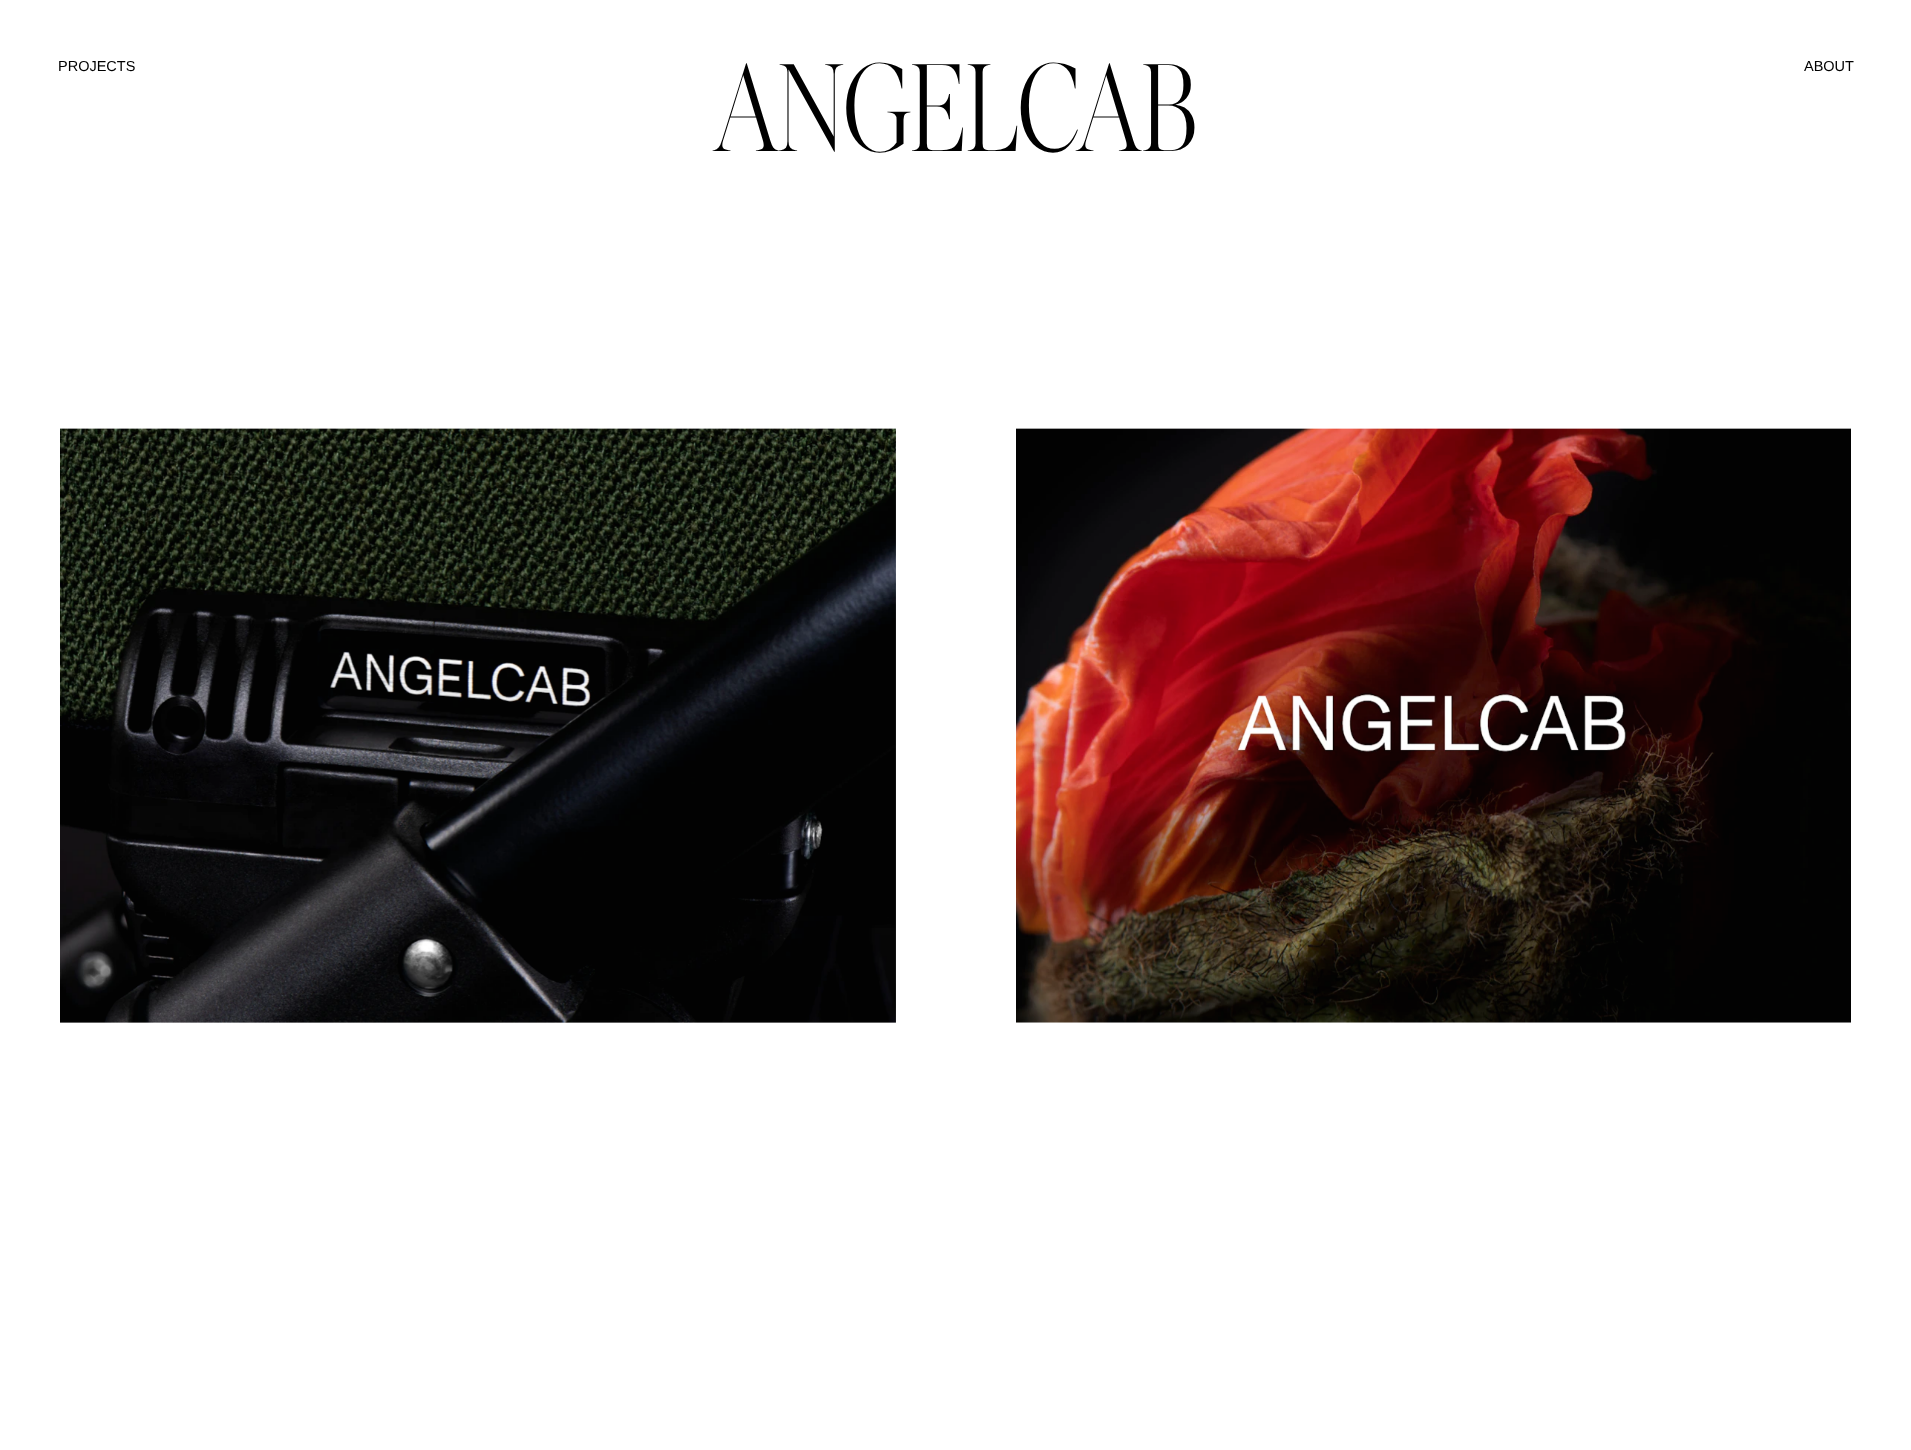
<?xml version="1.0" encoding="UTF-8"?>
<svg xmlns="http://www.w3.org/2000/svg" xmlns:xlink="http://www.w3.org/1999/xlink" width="1911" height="1450">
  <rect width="100%" height="100%" fill="#ffffff" />
  <image x="60" y="428" width="836" height="595" xlink:href="image1.png" />
  <image x="1016" y="428" width="835" height="595" xlink:href="image2.png" />
  <text x="58" y="71" style="font-family: Liberation Sans; font-size: 14.5px; fill: #000000">PROJECTS</text>
  <text x="1804" y="71" style="font-family: Liberation Sans; font-size: 14.5px; fill: #000000">ABOUT</text>
  <text x="713" y="151" style="font-family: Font; font-size: 124px; font-weight: 300; fill: #000000">ANGELCAB</text>
</svg>
